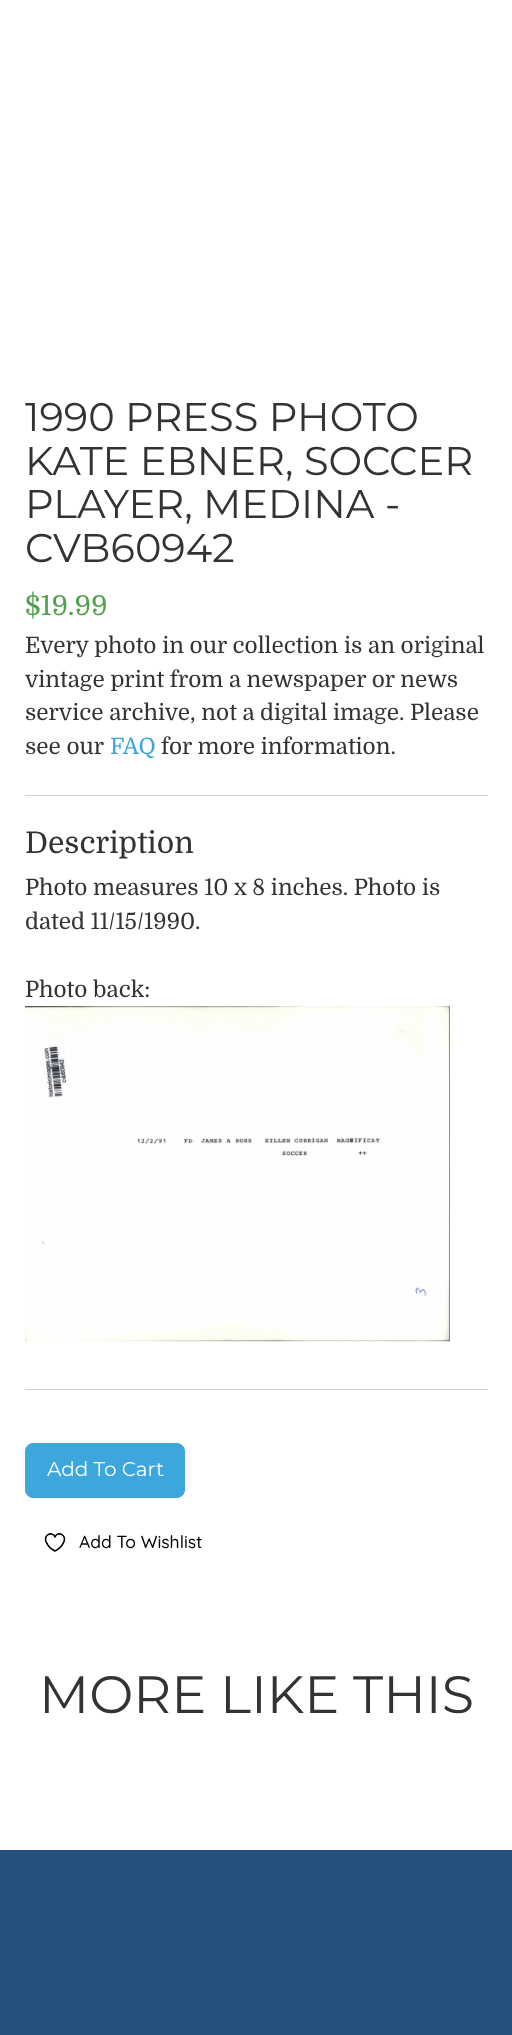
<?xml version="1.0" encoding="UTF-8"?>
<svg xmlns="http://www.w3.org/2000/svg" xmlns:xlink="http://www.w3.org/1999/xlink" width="512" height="2035">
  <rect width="100%" height="100%" fill="#ffffff" />
  <rect x="25" y="795" width="463" height="1" fill="#d1d1d1" />
  <rect x="25" y="1389" width="463" height="1" fill="#d1d1d1" />
  <image x="25" y="1006" width="425" height="336" xlink:href="image1.png" />
  <rect x="25.5" y="1443.5" width="159" height="54" rx="7.5" fill="#3ca6dd" stroke="#3ca6dd" />
  <path d="M 55 1551 c -3 -1.5 -6.5 -4 -8 -7.5 c -5.5 -8.5 5.5 -13 8 -6.5 c 2.5 -6.5 13.5 -2 8 6.5 c -1.5 3.5 -5 6 -8 7.5 z" fill="none" stroke="#000000" stroke-width="1.6" stroke-linecap="round" stroke-linejoin="round" />
  <rect y="1850" width="512" height="185" fill="#24517d" />
  <text x="25" y="431" style="font-family: Montserrat; font-size: 40px; fill: #333333">1990 PRESS PHOTO</text>
  <text x="25" y="475" style="font-family: Montserrat; font-size: 40px; fill: #333333">KATE EBNER, SOCCER</text>
  <text x="25" y="518" style="font-family: Montserrat; font-size: 40px; fill: #333333">PLAYER, MEDINA -</text>
  <text x="25" y="562" style="font-family: Montserrat; font-size: 40px; fill: #333333">CVB60942</text>
  <text x="25" y="615" style="font-family: Domine; font-size: 27.5px; fill: #50a14d">$19.99</text>
  <text x="25" y="653" style="font-family: Domine; font-size: 22.5px; fill: #333333">Every photo in our collection is an original</text>
  <text x="25" y="687" style="font-family: Domine; font-size: 22.5px; fill: #333333">vintage print from a newspaper or news</text>
  <text x="25" y="720" style="font-family: Domine; font-size: 22.5px; fill: #333333">service archive, not a digital image. Please</text>
  <text x="25" y="754" style="font-family: Domine; font-size: 22.5px; fill: #333333">see our</text>
  <text x="110" y="754" style="font-family: Domine; font-size: 22.5px; fill: #3ca6dd">FAQ</text>
  <text x="161" y="754" style="font-family: Domine; font-size: 22.5px; fill: #333333">for more information.</text>
  <text x="25" y="853" style="font-family: Domine; font-size: 30px; fill: #333333">Description</text>
  <text x="25" y="895" style="font-family: Domine; font-size: 22.5px; fill: #333333">Photo measures 10 x 8 inches. Photo is</text>
  <text x="25" y="929" style="font-family: Domine; font-size: 22.5px; fill: #333333">dated 11/15/1990.</text>
  <text x="25" y="997" style="font-family: Domine; font-size: 22.5px; fill: #333333">Photo back:</text>
  <text x="47" y="1476" style="font-family: Montserrat; font-size: 20px; fill: #ffffff">Add To Cart</text>
  <text x="79" y="1548" style="font-family: Quicksand; font-size: 17.5px; font-weight: 500; fill: #000000">Add To Wishlist</text>
  <text x="39" y="1713" style="font-family: Montserrat; font-size: 52.5px; fill: #333333">MORE LIKE THIS</text>
</svg>
